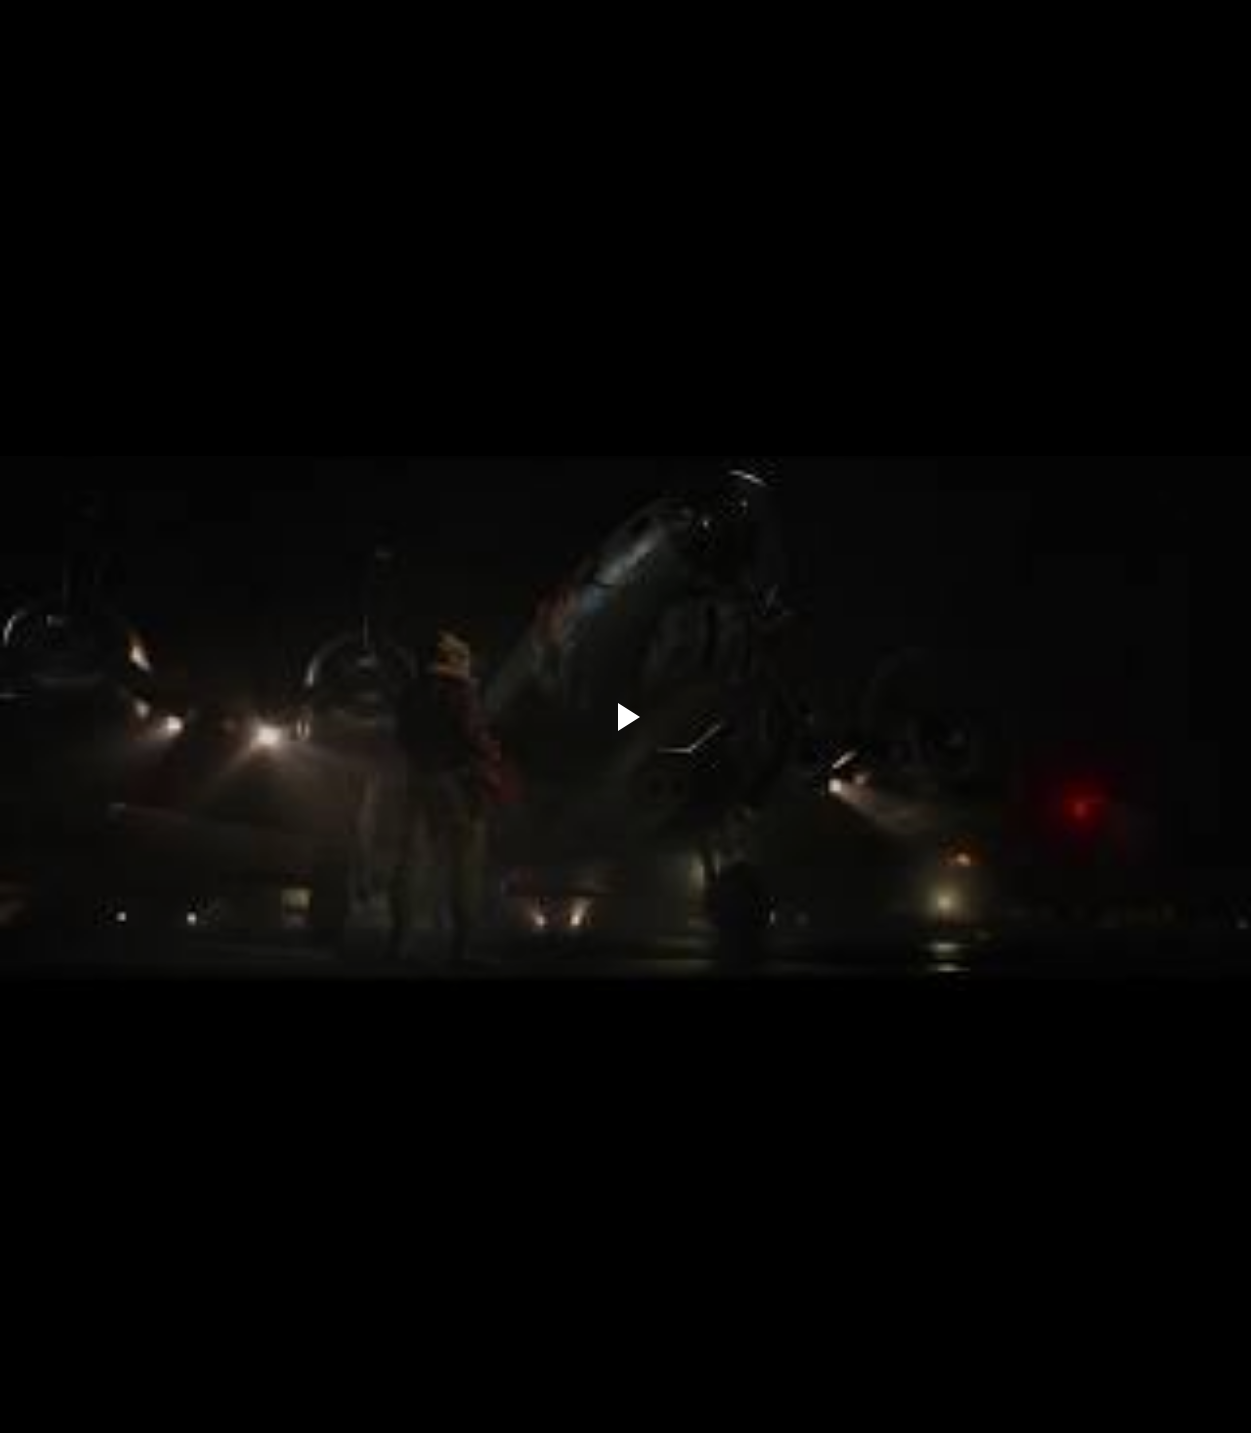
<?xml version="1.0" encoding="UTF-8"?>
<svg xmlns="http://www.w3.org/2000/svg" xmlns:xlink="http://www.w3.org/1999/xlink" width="1251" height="1433">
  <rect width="100%" height="100%" fill="#000000" />
  <image x="0" y="456" width="1251" height="535" xlink:href="image1.png" />
  <image x="618" y="703" width="22" height="28" xlink:href="image2.png" />
</svg>
